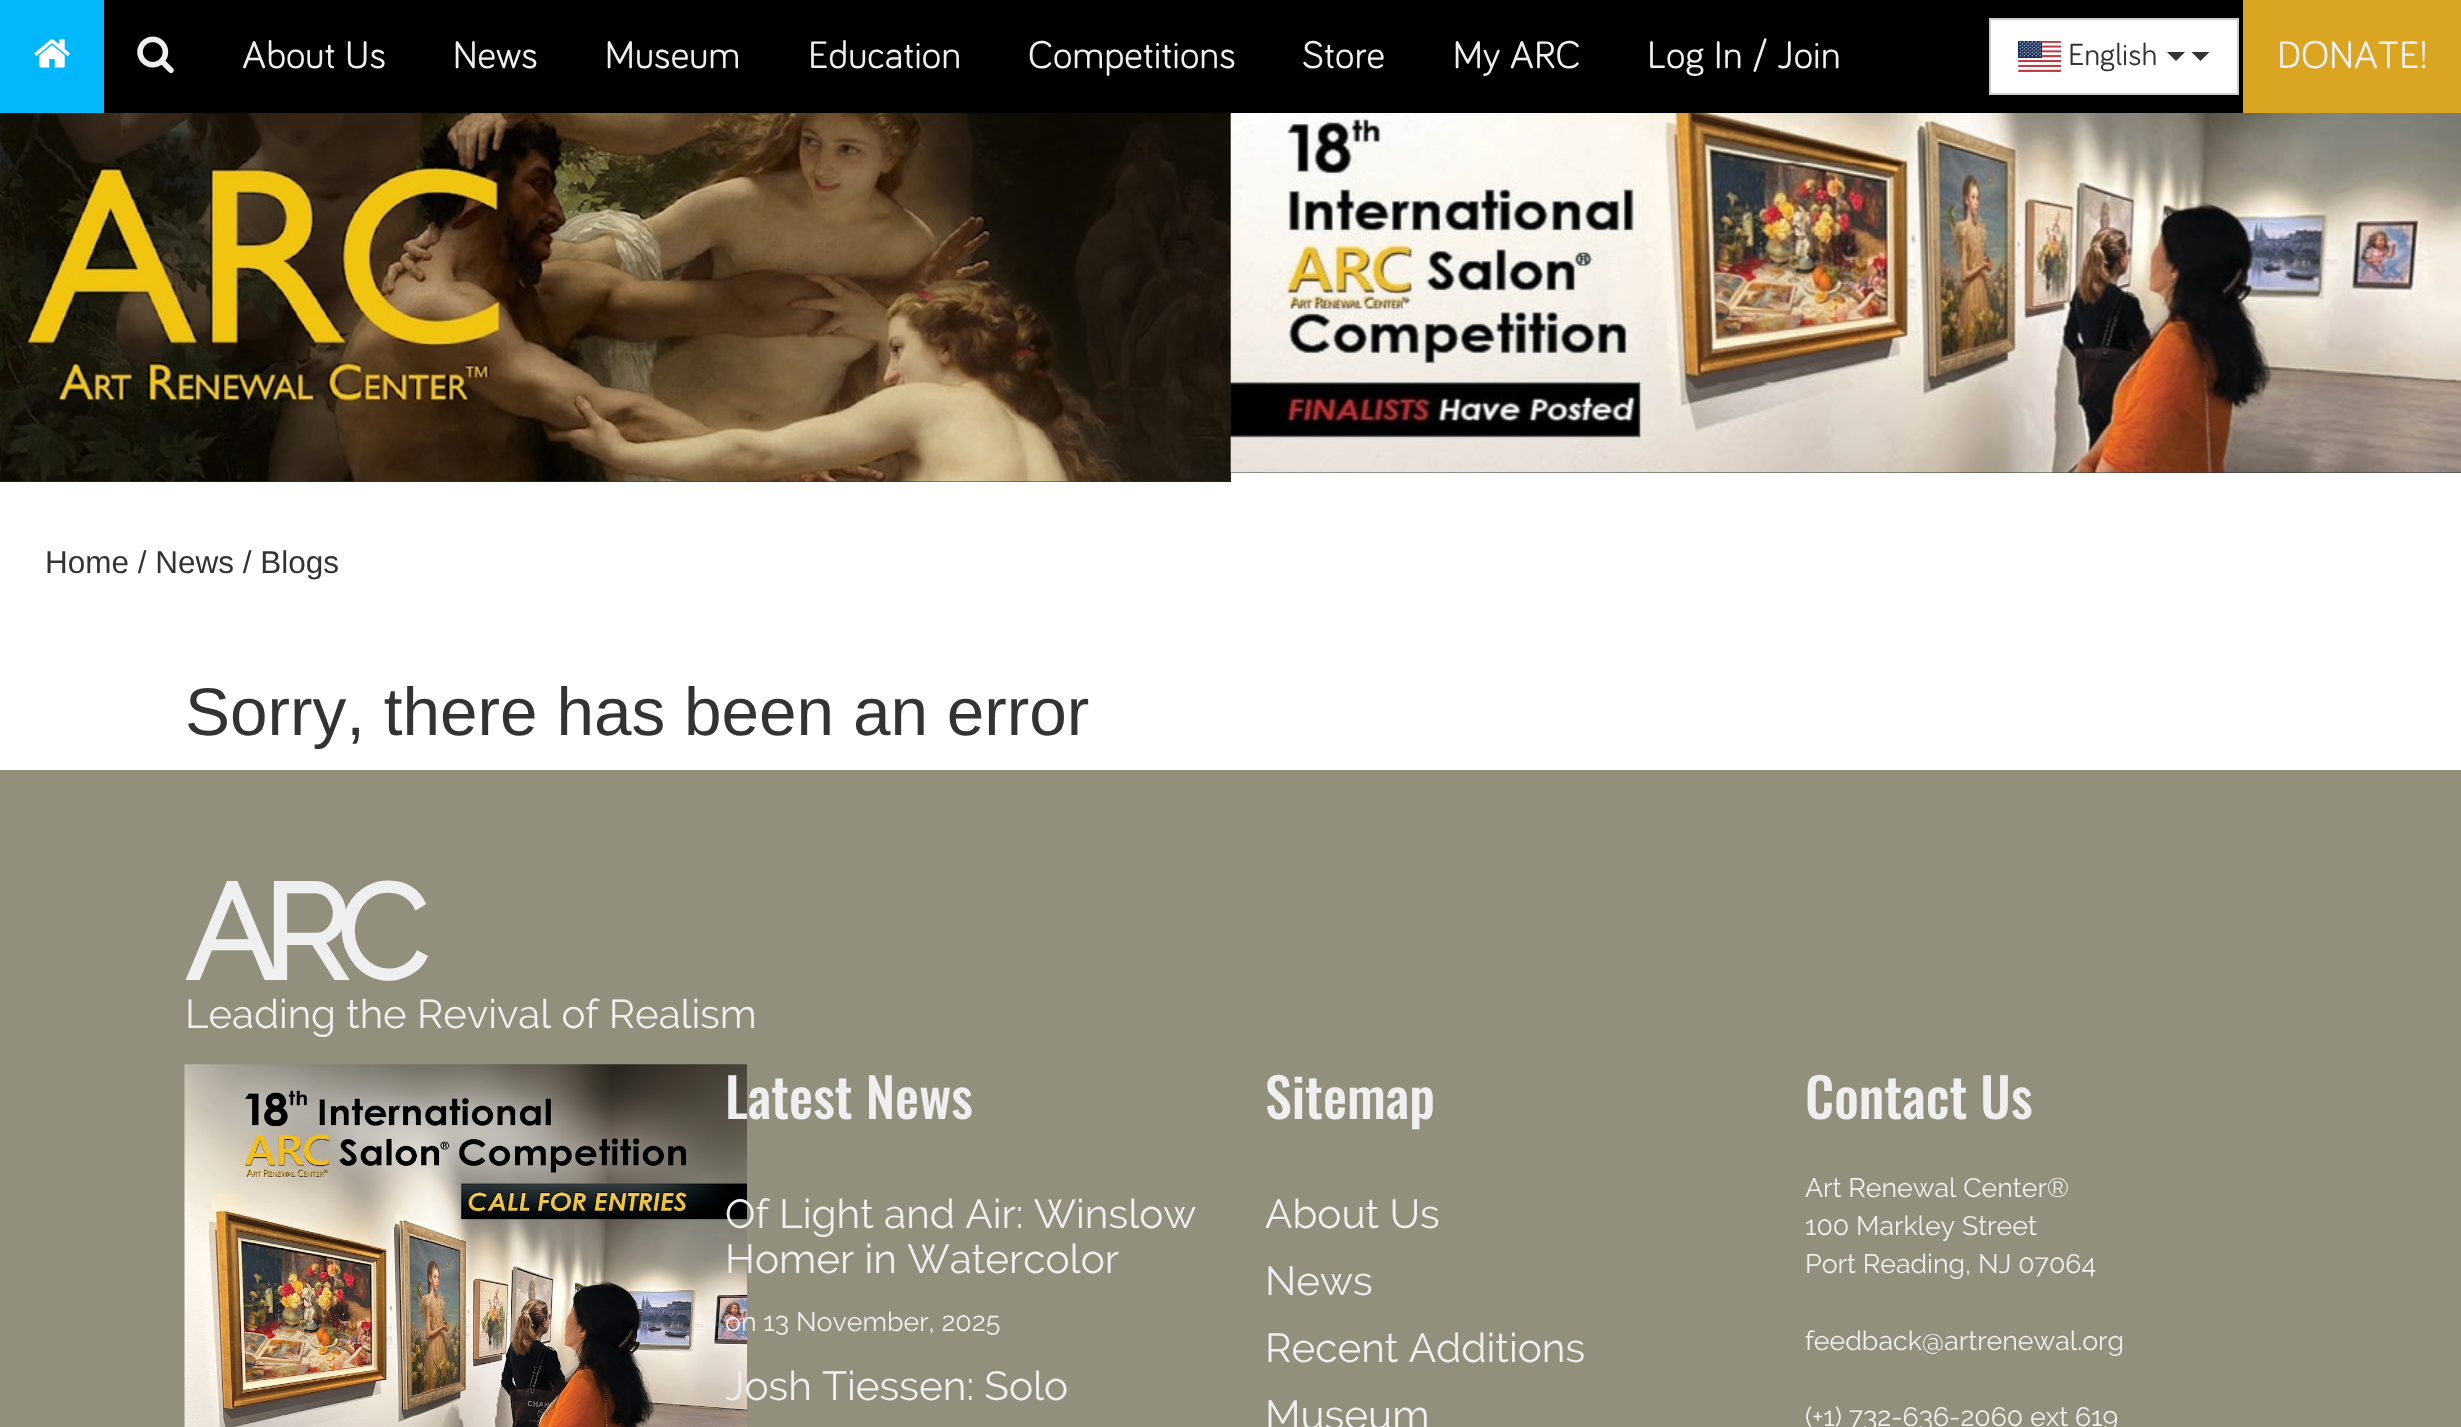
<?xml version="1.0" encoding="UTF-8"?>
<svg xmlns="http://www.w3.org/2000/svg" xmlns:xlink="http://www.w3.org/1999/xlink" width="2461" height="1427">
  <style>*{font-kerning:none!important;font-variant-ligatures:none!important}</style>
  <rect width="100%" height="100%" fill="#ffffff" />
  <rect x="104" width="2139" height="113" fill="#000000" />
  <rect width="104" height="113" fill="#02b8fa" />
  <image x="34" y="39" width="36" height="29" xlink:href="image1.png" />
  <image x="137" y="36" width="37" height="38" xlink:href="image2.png" />
  <rect x="1990" y="19" width="248" height="75" fill="#ffffff" stroke="#cccccc" stroke-width="2" />
  <image x="2018" y="41" width="43" height="31" xlink:href="image3.png" />
  <path d="M 2167 52 h 18 l -9 9 z m 24.5 0 h 18 l -9 9 z" fill="#333333" />
  <rect x="2243" width="218" height="113" fill="#daa520" />
  <rect y="113" width="1231" height="369" fill="#333333" />
  <image x="0" y="113" width="1231" height="369" xlink:href="image4.png" />
  <rect x="1231" y="472" width="1230" height="1" fill="#333333" />
  <image x="1230" y="113" width="1231" height="360" xlink:href="image5.png" />
  <rect y="770" width="2461" height="657" fill="#928f7d" />
  <image x="184" y="1064" width="563" height="363" xlink:href="image6.png" />
  <text x="242" y="68" style="font-family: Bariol; font-size: 39.5px; fill: #efefef">About Us</text>
  <text x="453" y="68" style="font-family: Bariol; font-size: 39.5px; fill: #efefef">News</text>
  <text x="605" y="68" style="font-family: Bariol; font-size: 39.5px; fill: #efefef">Museum</text>
  <text x="808" y="68" style="font-family: Bariol; font-size: 39.5px; fill: #efefef">Education</text>
  <text x="1028" y="68" style="font-family: Bariol; font-size: 39.5px; fill: #efefef">Competitions</text>
  <text x="1302" y="68" style="font-family: Bariol; font-size: 39.5px; fill: #efefef">Store</text>
  <text x="1453" y="68" style="font-family: Bariol; font-size: 39.5px; fill: #efefef">My ARC</text>
  <text x="1647" y="68" style="font-family: Bariol; font-size: 39.5px; fill: #efefef">Log In / Join</text>
  <text x="2068" y="65" style="font-family: Bariol; font-size: 31.5px; fill: #333333">English</text>
  <text x="2277" y="68" style="font-family: Bariol; font-size: 39.5px; fill: #efefef">DONATE!</text>
  <text x="45" y="573" style="font-family: Liberation Sans; font-size: 31.5px; fill: #333333">Home / News / Blogs</text>
  <text x="185" y="735" style="font-family: Liberation Sans; font-size: 67.5px; fill: #333333">Sorry, there has been an error</text>
  <text x="185" y="980" style="font-family: Raleway; font-size: 134px; font-weight: bold; letter-spacing: -13.5px; fill: #efefef">ARC</text>
  <text x="185" y="1028" style="font-family: Raleway; font-size: 40.2px; fill: #efefef">Leading the Revival of Realism</text>
  <text x="725" y="1119" style="font-family: Oswald; font-size: 54px; font-weight: 500; fill: #efefef">Latest News</text>
  <text x="725" y="1228" style="font-family: Raleway; font-size: 40.5px; fill: #efefef">Of Light and Air: Winslow</text>
  <text x="725" y="1273" style="font-family: Raleway; font-size: 40.5px; fill: #efefef">Homer in Watercolor</text>
  <text x="725" y="1331" style="font-family: Raleway; font-size: 26.75px; fill: #efefef">on 13 November, 2025</text>
  <text x="725" y="1400" style="font-family: Raleway; font-size: 40.5px; fill: #efefef">Josh Tiessen: Solo</text>
  <text x="1265" y="1119" style="font-family: Oswald; font-size: 54px; font-weight: 500; fill: #efefef">Sitemap</text>
  <text x="1265" y="1228" style="font-family: Raleway; font-size: 40.5px; fill: #efefef">About Us</text>
  <text x="1265" y="1295" style="font-family: Raleway; font-size: 40.5px; fill: #efefef">News</text>
  <text x="1265" y="1362" style="font-family: Raleway; font-size: 40.5px; fill: #efefef">Recent Additions</text>
  <text x="1265" y="1429" style="font-family: Raleway; font-size: 40.5px; fill: #efefef">Museum</text>
  <text x="1805" y="1119" style="font-family: Oswald; font-size: 54px; font-weight: 500; fill: #efefef">Contact Us</text>
  <text x="1805" y="1197" style="font-family: Raleway; font-size: 26.75px; fill: #efefef">Art Renewal Center®</text>
  <text x="1805" y="1235" style="font-family: Raleway; font-size: 26.75px; fill: #efefef">100 Markley Street</text>
  <text x="1805" y="1273" style="font-family: Raleway; font-size: 26.75px; fill: #efefef">Port Reading, NJ 07064</text>
  <text x="1805" y="1350" style="font-family: Raleway; font-size: 26.75px; fill: #efefef">feedback@artrenewal.org</text>
  <text x="1805" y="1426" style="font-family: Raleway; font-size: 26.75px; fill: #efefef">(+1) 732-636-2060 ext 619</text>
</svg>
